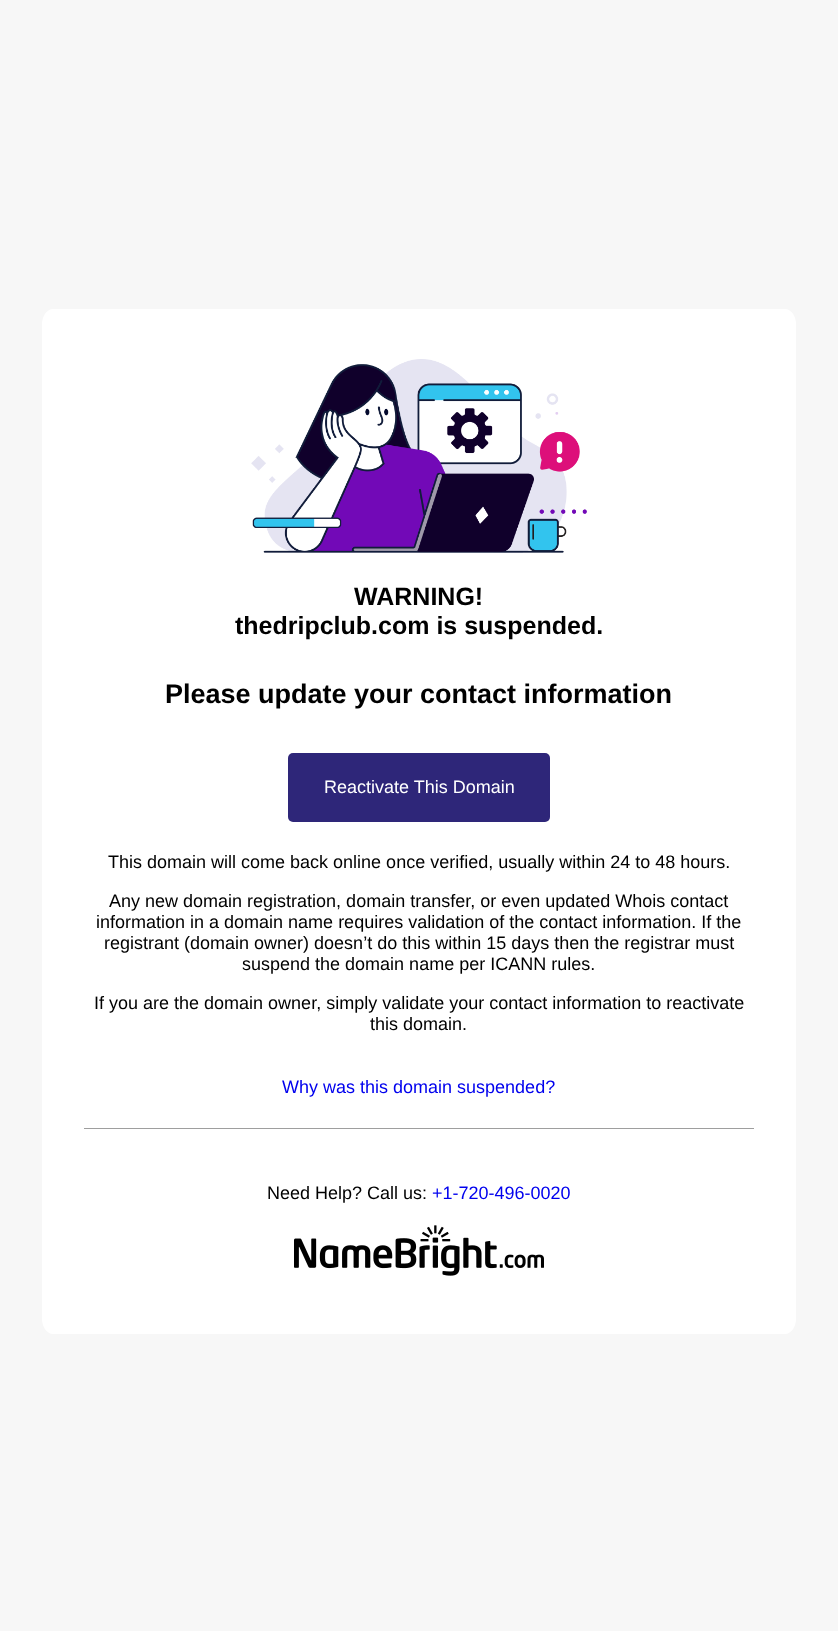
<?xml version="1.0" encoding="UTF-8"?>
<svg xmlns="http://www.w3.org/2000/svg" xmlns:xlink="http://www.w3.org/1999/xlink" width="838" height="1631">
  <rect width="100%" height="100%" fill="#f7f7f7" />
  <path d="M 53 309 h 732 c 6 0 11 7 11 15 v 995 c 0 8 -5 15 -11 15 h -732 c -6 0 -11 -7 -11 -15 v -995 c 0 -8 5 -15 11 -15 z" fill="#ffffff" />
  <image x="251" y="359" width="336" height="194" xlink:href="image1.png" />
  <rect x="84" y="1128" width="670" height="1" fill="#9e9e9e" />
  <rect x="288" y="753" width="262" height="69" rx="5" fill="#2e2679" />
  <image x="294" y="1225" width="250" height="51" xlink:href="image2.png" />
  <text x="354" y="605" style="font-family: Liberation Sans; font-size: 25px; font-weight: bold; fill: #000000">WARNING!</text>
  <text x="235" y="634" style="font-family: Liberation Sans; font-size: 25px; font-weight: bold; fill: #000000">thedripclub.com is suspended.</text>
  <text x="165" y="703" style="font-family: Liberation Sans; font-size: 27px; font-weight: bold; fill: #000000">Please update your contact information</text>
  <text x="324" y="793" style="font-family: Liberation Sans; font-size: 18px; fill: #ffffff">Reactivate This Domain</text>
  <text x="108" y="868" style="font-family: Liberation Sans; font-size: 18px; fill: #000000">This domain will come back online once verified, usually within 24 to 48 hours.</text>
  <text x="109" y="907" style="font-family: Liberation Sans; font-size: 18px; fill: #000000">Any new domain registration, domain transfer, or even updated Whois contact</text>
  <text x="96" y="928" style="font-family: Liberation Sans; font-size: 18px; fill: #000000">information in a domain name requires validation of the contact information. If the</text>
  <text x="104" y="949" style="font-family: Liberation Sans; font-size: 18px; fill: #000000">registrant (domain owner) doesn’t do this within 15 days then the registrar must</text>
  <text x="242" y="970" style="font-family: Liberation Sans; font-size: 18px; fill: #000000">suspend the domain name per ICANN rules.</text>
  <text x="94" y="1009" style="font-family: Liberation Sans; font-size: 18px; fill: #000000">If you are the domain owner, simply validate your contact information to reactivate</text>
  <text x="370" y="1030" style="font-family: Liberation Sans; font-size: 18px; fill: #000000">this domain.</text>
  <text x="282" y="1093" style="font-family: Liberation Sans; font-size: 18px; fill: #0000ee">Why was this domain suspended?</text>
  <text x="267" y="1199" style="font-family: Liberation Sans; font-size: 18px; fill: #000000">Need Help? Call us:</text>
  <text x="432" y="1199" style="font-family: Liberation Sans; font-size: 18px; fill: #0000ee">+1-720-496-0020</text>
</svg>
